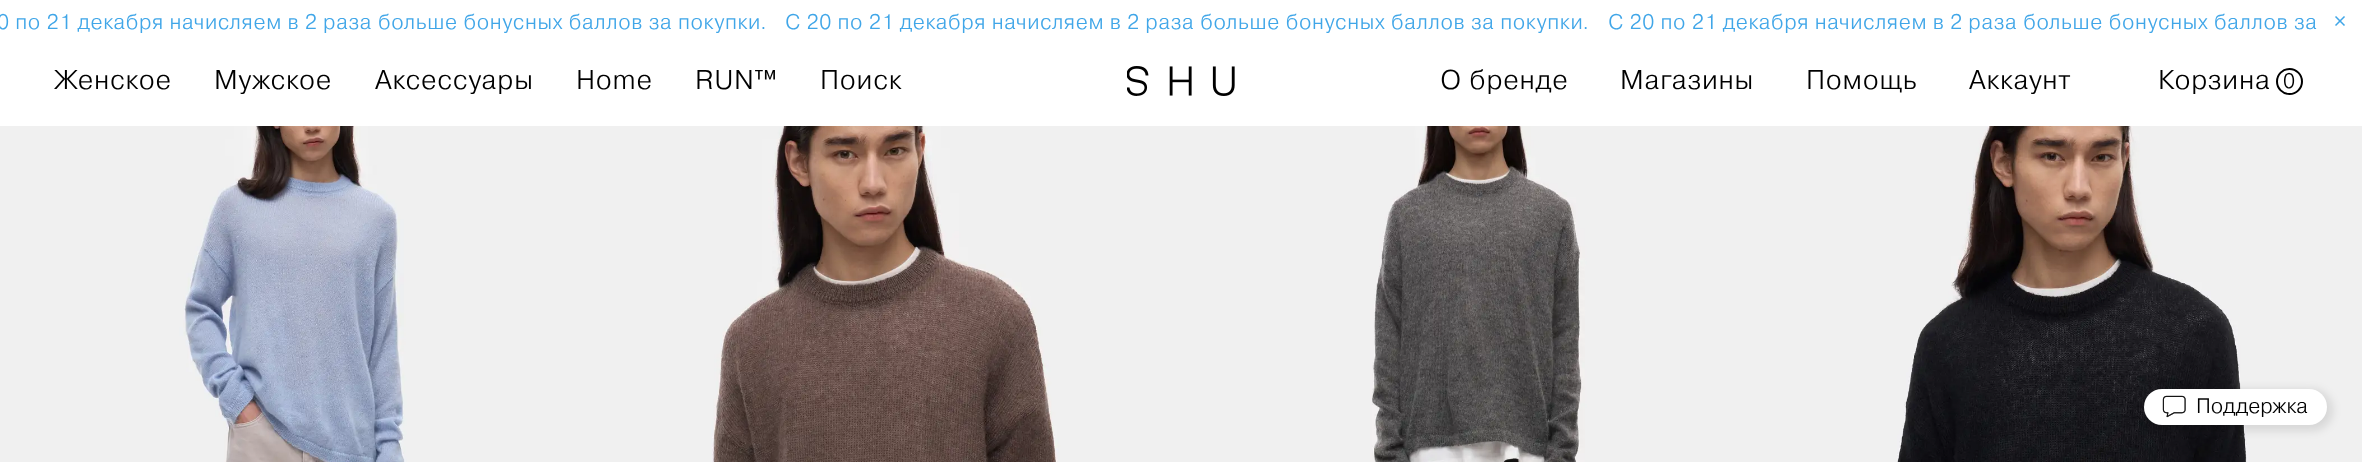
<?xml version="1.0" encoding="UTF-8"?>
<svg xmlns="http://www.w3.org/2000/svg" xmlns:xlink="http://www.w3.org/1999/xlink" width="2362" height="462">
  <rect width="100%" height="100%" fill="#ffffff" />
  <image x="2335" y="16" width="10" height="10" xlink:href="image1.png" />
  <image x="1127" y="66" width="108" height="30" xlink:href="image2.png" />
  <circle cx="2289.5" cy="81.5" r="12.5" fill="none" stroke="#000000" stroke-width="2" />
  <image x="0" y="126" width="591" height="336" xlink:href="image3.png" />
  <image x="591" y="126" width="591" height="336" xlink:href="image4.png" />
  <image x="1182" y="126" width="590" height="336" xlink:href="image5.png" />
  <image x="1772" y="126" width="590" height="336" xlink:href="image6.png" />
  <rect x="2144" y="389" width="189" height="42" rx="21" fill="#000000" fill-opacity="0.1" filter="blur(4.5px)" />
  <rect x="2144" y="389" width="183" height="36" rx="18" fill="#ffffff" />
  <image x="2162" y="395" width="24" height="23" xlink:href="image7.png" />
  <text x="-3" y="29" style="font-family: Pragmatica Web; font-size: 21px; font-weight: 300; letter-spacing: 0.63px; fill: #40a6e8">0 по 21 декабря начисляем в 2 раза больше бонусных баллов за покупки.</text>
  <text x="785" y="29" style="font-family: Pragmatica Web; font-size: 21px; font-weight: 300; letter-spacing: 0.63px; fill: #40a6e8">С 20 по 21 декабря начисляем в 2 раза больше бонусных баллов за покупки.</text>
  <text x="1608" y="29" style="font-family: Pragmatica Web; font-size: 21px; font-weight: 300; letter-spacing: 0.63px; fill: #40a6e8">С 20 по 21 декабря начисляем в 2 раза больше бонусных баллов за</text>
  <text x="54" y="89" style="font-family: Pragmatica Web; font-size: 27px; font-weight: 300; letter-spacing: 0.75px; fill: #000000">Женское</text>
  <text x="214" y="89" style="font-family: Pragmatica Web; font-size: 27px; font-weight: 300; letter-spacing: 0.75px; fill: #000000">Мужское</text>
  <text x="375" y="89" style="font-family: Pragmatica Web; font-size: 27px; font-weight: 300; letter-spacing: 0.75px; fill: #000000">Аксессуары</text>
  <text x="576" y="89" style="font-family: Pragmatica Web; font-size: 27px; font-weight: 300; letter-spacing: 0.75px; fill: #000000">Home</text>
  <text x="695" y="89" style="font-family: Pragmatica Web; font-size: 27px; font-weight: 300; letter-spacing: 0.75px; fill: #000000">RUN™</text>
  <text x="820" y="89" style="font-family: Pragmatica Web; font-size: 27px; font-weight: 300; letter-spacing: 0.75px; fill: #000000">Поиск</text>
  <text x="1440" y="89" style="font-family: Pragmatica Web; font-size: 27px; font-weight: 300; letter-spacing: 0.75px; fill: #000000">О бренде</text>
  <text x="1620" y="89" style="font-family: Pragmatica Web; font-size: 27px; font-weight: 300; letter-spacing: 0.75px; fill: #000000">Магазины</text>
  <text x="1806" y="89" style="font-family: Pragmatica Web; font-size: 27px; font-weight: 300; letter-spacing: 0.75px; fill: #000000">Помощь</text>
  <text x="1969" y="89" style="font-family: Pragmatica Web; font-size: 27px; font-weight: 300; letter-spacing: 0.75px; fill: #000000">Аккаунт</text>
  <text x="2158" y="89" style="font-family: Pragmatica Web; font-size: 27px; font-weight: 300; letter-spacing: 0.75px; fill: #000000">Корзина</text>
  <text x="2283" y="88" style="font-family: Pragmatica Web; font-size: 21px; font-weight: 300; letter-spacing: 0.63px; fill: #000000">0</text>
  <text x="2196" y="413" style="font-family: Pragmatica Web; font-size: 21px; font-weight: 300; fill: #000000">Поддержка</text>
</svg>
